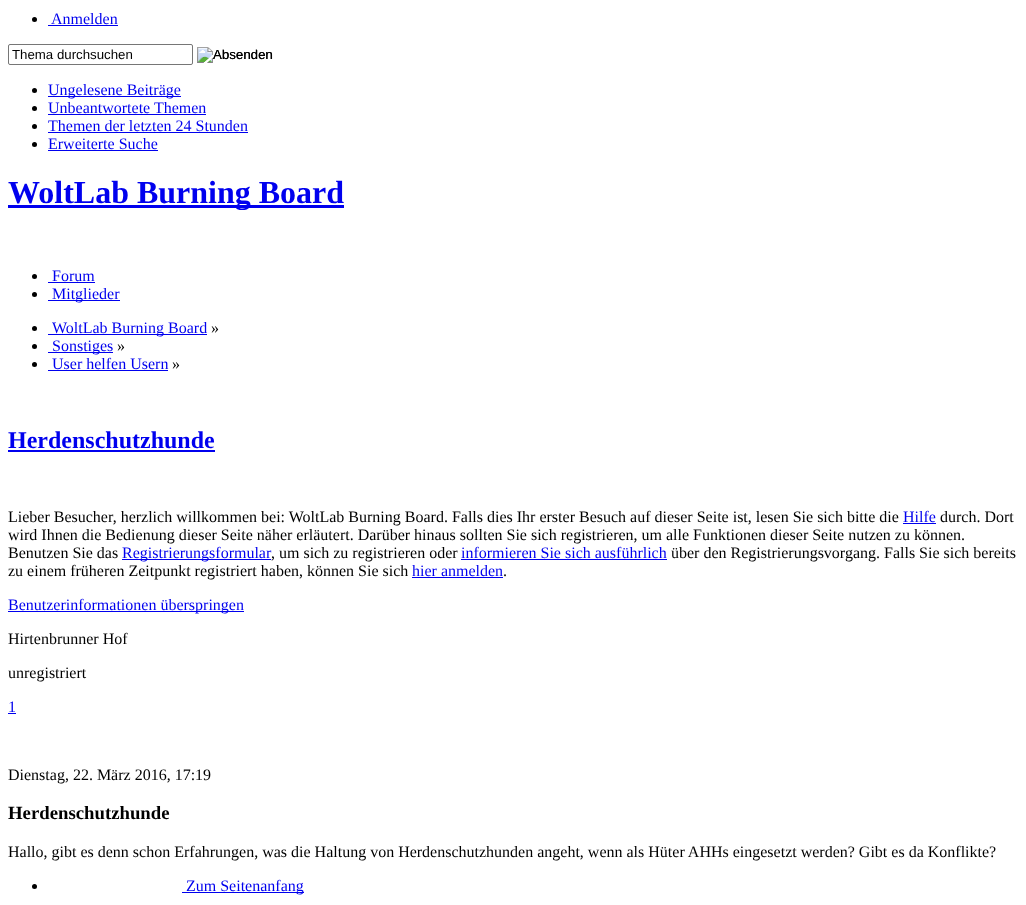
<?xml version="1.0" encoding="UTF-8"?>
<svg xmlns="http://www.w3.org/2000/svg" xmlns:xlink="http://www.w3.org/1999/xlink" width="1026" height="905">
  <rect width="100%" height="100%" fill="#ffffff" />
  <circle cx="34.5" cy="19.5" r="2.5" fill="#000000" />
  <rect x="48" y="25" width="70" height="1" fill="#0000ee" />
  <rect x="8.5" y="44.5" width="184" height="20" rx="1.5" fill="none" stroke="#767676" />
  <image x="197" y="47" width="76" height="16" xlink:href="image1.png" />
  <circle cx="34.5" cy="90.5" r="2.5" fill="#000000" />
  <rect x="48" y="96" width="133" height="1" fill="#0000ee" />
  <circle cx="34.5" cy="108.5" r="2.5" fill="#000000" />
  <rect x="48" y="114" width="158" height="1" fill="#0000ee" />
  <circle cx="34.5" cy="126.5" r="2.5" fill="#000000" />
  <rect x="48" y="132" width="200" height="1" fill="#0000ee" />
  <circle cx="34.5" cy="144.5" r="2.5" fill="#000000" />
  <rect x="48" y="150" width="110" height="1" fill="#0000ee" />
  <rect x="8" y="205" width="336" height="3" fill="#0000ee" />
  <circle cx="34.5" cy="276.5" r="2.5" fill="#000000" />
  <rect x="48" y="282" width="47" height="1" fill="#0000ee" />
  <circle cx="34.5" cy="294.5" r="2.5" fill="#000000" />
  <rect x="48" y="300" width="72" height="1" fill="#0000ee" />
  <circle cx="34.5" cy="328.5" r="2.5" fill="#000000" />
  <rect x="48" y="334" width="159" height="1" fill="#0000ee" />
  <circle cx="34.5" cy="346.5" r="2.5" fill="#000000" />
  <rect x="48" y="352" width="65" height="1" fill="#0000ee" />
  <circle cx="34.5" cy="364.5" r="2.5" fill="#000000" />
  <rect x="48" y="370" width="120" height="1" fill="#0000ee" />
  <rect x="8" y="450" width="207" height="2" fill="#0000ee" />
  <rect x="903" y="523" width="33" height="1" fill="#0000ee" />
  <rect x="122" y="559" width="149" height="1" fill="#0000ee" />
  <rect x="461" y="559" width="206" height="1" fill="#0000ee" />
  <rect x="412" y="577" width="91" height="1" fill="#0000ee" />
  <rect x="8" y="611" width="236" height="1" fill="#0000ee" />
  <rect x="8" y="713" width="8" height="1" fill="#0000ee" />
  <circle cx="34.5" cy="886.5" r="2.5" fill="#000000" />
  <rect x="182" y="892" width="122" height="1" fill="#0000ee" />
  <text x="51" y="24" style="font-family: Liberation Serif; font-size: 16px; fill: #0000ee">Anmelden</text>
  <text x="12" y="59" style="font-family: Liberation Sans; font-size: 13.25px; fill: #000000">Thema durchsuchen</text>
  <text x="213" y="59" style="font-family: Liberation Sans; font-size: 13.25px; fill: #000000">Absenden</text>
  <text x="48" y="95" style="font-family: Liberation Serif; font-size: 16px; fill: #0000ee">Ungelesene Beiträge</text>
  <text x="48" y="113" style="font-family: Liberation Serif; font-size: 16px; fill: #0000ee">Unbeantwortete Themen</text>
  <text x="48" y="131" style="font-family: Liberation Serif; font-size: 16px; fill: #0000ee">Themen der letzten 24 Stunden</text>
  <text x="48" y="149" style="font-family: Liberation Serif; font-size: 16px; fill: #0000ee">Erweiterte Suche</text>
  <text x="8" y="203" style="font-family: Liberation Serif; font-size: 32px; font-weight: bold; fill: #0000ee">WoltLab Burning Board</text>
  <text x="52" y="281" style="font-family: Liberation Serif; font-size: 16px; fill: #0000ee">Forum</text>
  <text x="52" y="299" style="font-family: Liberation Serif; font-size: 16px; fill: #0000ee">Mitglieder</text>
  <text x="52" y="333" style="font-family: Liberation Serif; font-size: 16px; fill: #0000ee">WoltLab Burning Board</text>
  <text x="211" y="333" style="font-family: Liberation Serif; font-size: 16px; fill: #000000">»</text>
  <text x="52" y="351" style="font-family: Liberation Serif; font-size: 16px; fill: #0000ee">Sonstiges</text>
  <text x="117" y="351" style="font-family: Liberation Serif; font-size: 16px; fill: #000000">»</text>
  <text x="52" y="369" style="font-family: Liberation Serif; font-size: 16px; fill: #0000ee">User helfen Usern</text>
  <text x="172" y="369" style="font-family: Liberation Serif; font-size: 16px; fill: #000000">»</text>
  <text x="8" y="448" style="font-family: Liberation Serif; font-size: 24px; font-weight: bold; fill: #0000ee">Herdenschutzhunde</text>
  <text x="8" y="522" style="font-family: Liberation Serif; font-size: 16px; fill: #000000">Lieber Besucher, herzlich willkommen bei: WoltLab Burning Board. Falls dies Ihr erster Besuch auf dieser Seite ist, lesen Sie sich bitte die</text>
  <text x="903" y="522" style="font-family: Liberation Serif; font-size: 16px; fill: #0000ee">Hilfe</text>
  <text x="940" y="522" style="font-family: Liberation Serif; font-size: 16px; fill: #000000">durch. Dort</text>
  <text x="8" y="540" style="font-family: Liberation Serif; font-size: 16px; fill: #000000">wird Ihnen die Bedienung dieser Seite näher erläutert. Darüber hinaus sollten Sie sich registrieren, um alle Funktionen dieser Seite nutzen zu können.</text>
  <text x="8" y="558" style="font-family: Liberation Serif; font-size: 16px; fill: #000000">Benutzen Sie das</text>
  <text x="122" y="558" style="font-family: Liberation Serif; font-size: 16px; fill: #0000ee">Registrierungsformular</text>
  <text x="271" y="558" style="font-family: Liberation Serif; font-size: 16px; fill: #000000">, um sich zu registrieren oder</text>
  <text x="461" y="558" style="font-family: Liberation Serif; font-size: 16px; fill: #0000ee">informieren Sie sich ausführlich</text>
  <text x="671" y="558" style="font-family: Liberation Serif; font-size: 16px; fill: #000000">über den Registrierungsvorgang. Falls Sie sich bereits</text>
  <text x="8" y="576" style="font-family: Liberation Serif; font-size: 16px; fill: #000000">zu einem früheren Zeitpunkt registriert haben, können Sie sich</text>
  <text x="412" y="576" style="font-family: Liberation Serif; font-size: 16px; fill: #0000ee">hier anmelden</text>
  <text x="503" y="576" style="font-family: Liberation Serif; font-size: 16px; fill: #000000">.</text>
  <text x="8" y="610" style="font-family: Liberation Serif; font-size: 16px; fill: #0000ee">Benutzerinformationen überspringen</text>
  <text x="8" y="644" style="font-family: Liberation Serif; font-size: 16px; fill: #000000">Hirtenbrunner Hof</text>
  <text x="8" y="678" style="font-family: Liberation Serif; font-size: 16px; fill: #000000">unregistriert</text>
  <text x="8" y="712" style="font-family: Liberation Serif; font-size: 16px; fill: #0000ee">1</text>
  <text x="8" y="780" style="font-family: Liberation Serif; font-size: 16px; fill: #000000">Dienstag, 22. März 2016, 17:19</text>
  <text x="8" y="819" style="font-family: Liberation Serif; font-size: 18.75px; font-weight: bold; fill: #000000">Herdenschutzhunde</text>
  <text x="8" y="857" style="font-family: Liberation Serif; font-size: 16px; fill: #000000">Hallo, gibt es denn schon Erfahrungen, was die Haltung von Herdenschutzhunden angeht, wenn als Hüter AHHs eingesetzt werden? Gibt es da Konflikte?</text>
  <text x="186" y="891" style="font-family: Liberation Serif; font-size: 16px; fill: #0000ee">Zum Seitenanfang</text>
</svg>
